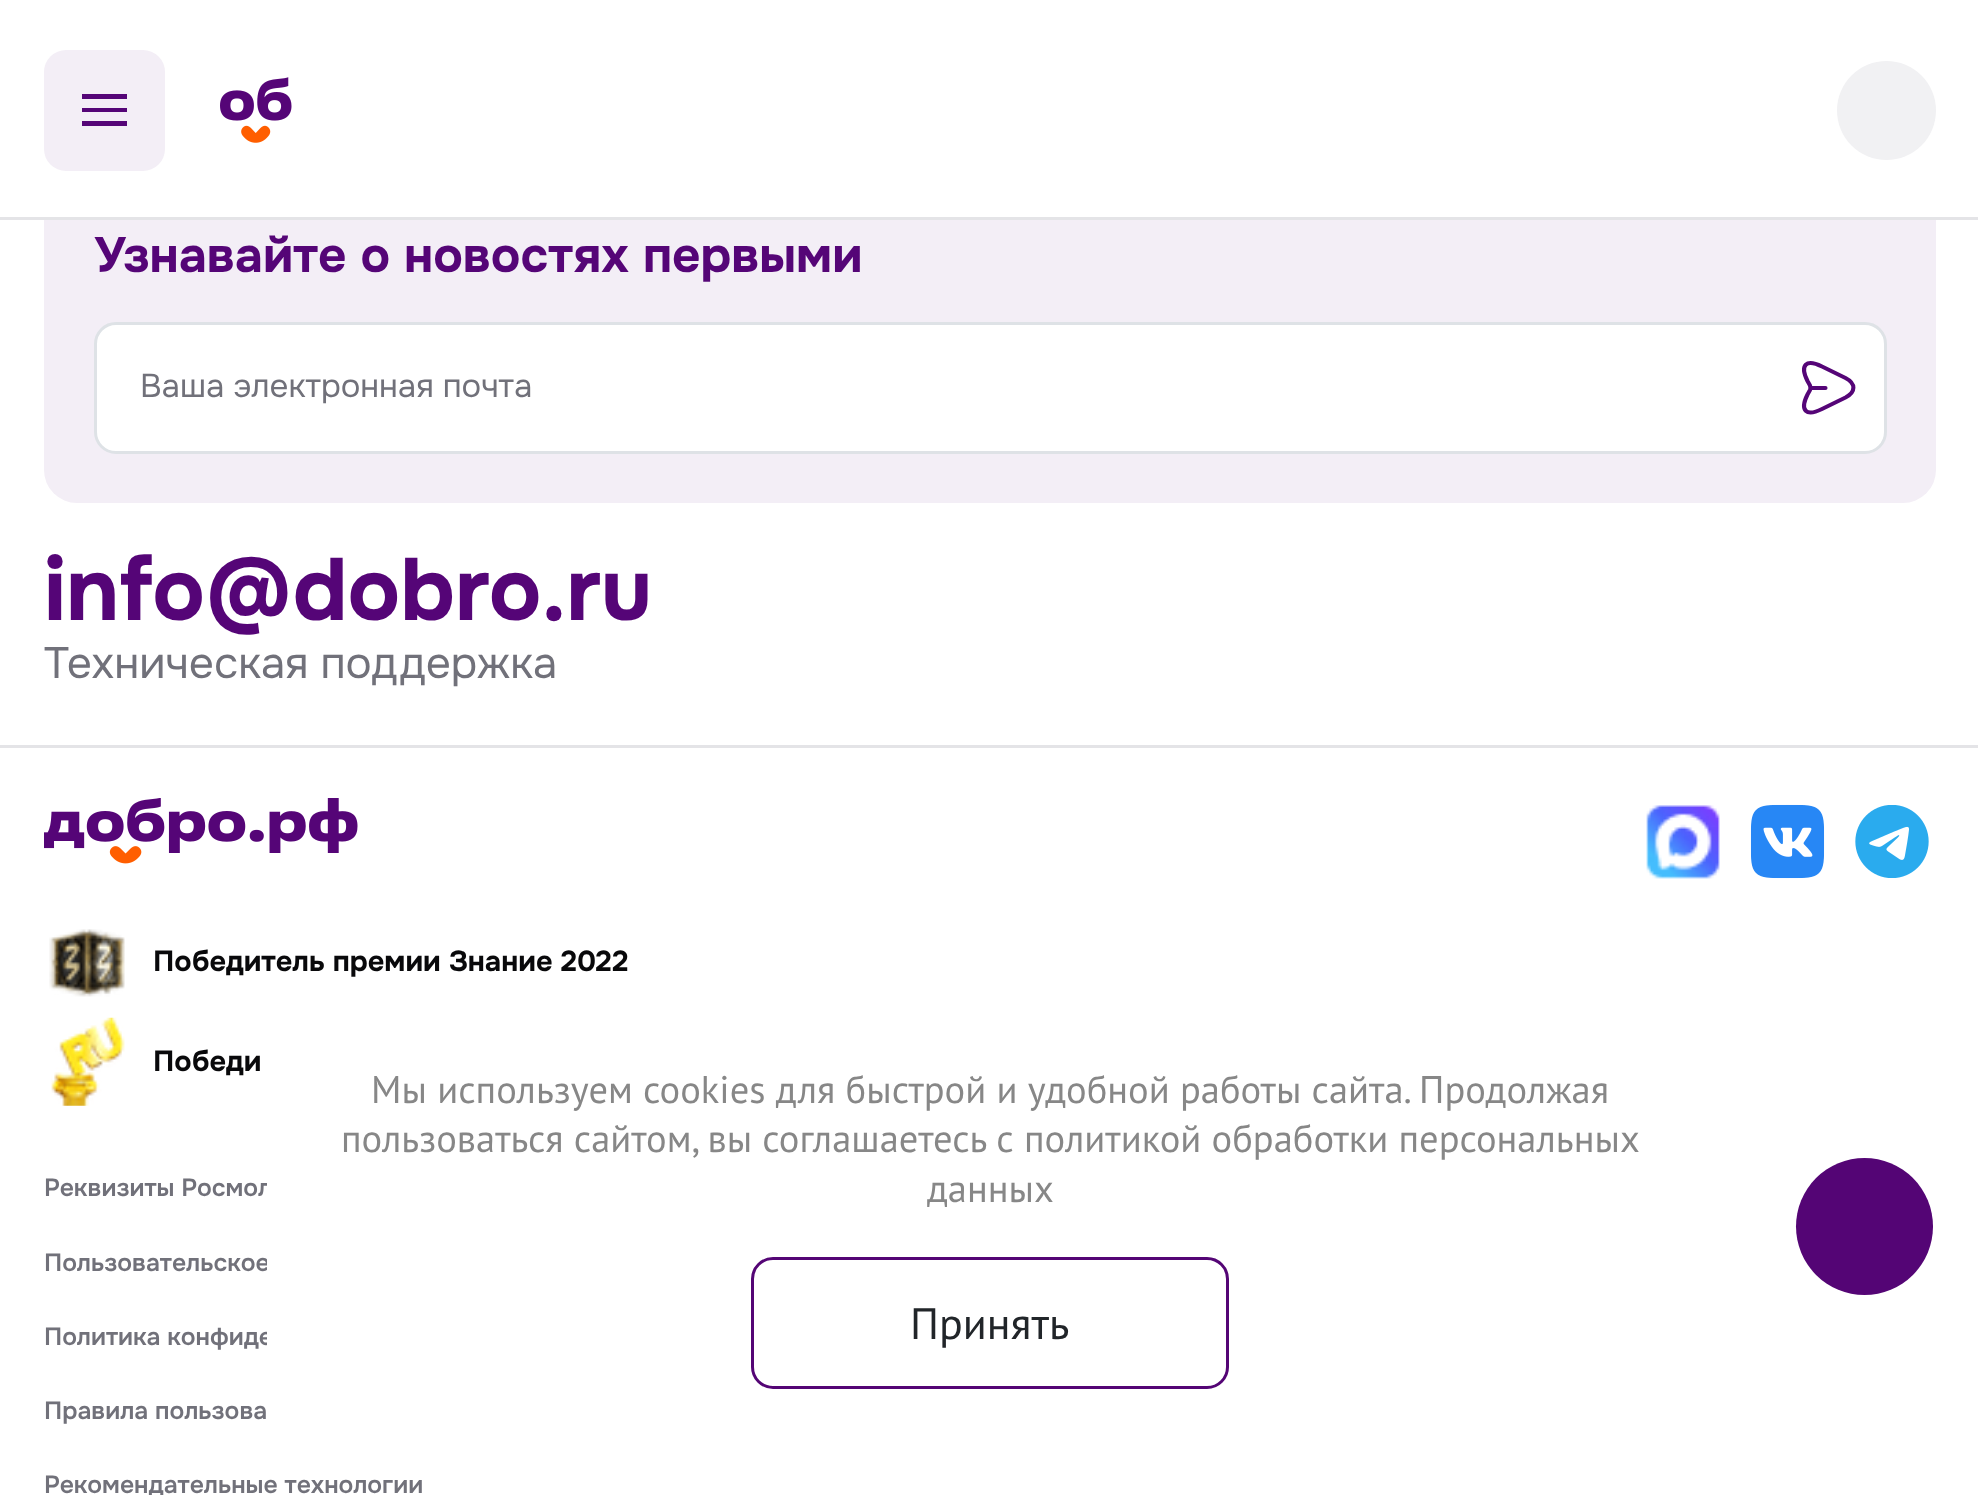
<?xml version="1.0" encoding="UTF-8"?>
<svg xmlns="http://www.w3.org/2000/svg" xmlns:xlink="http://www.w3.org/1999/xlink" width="1978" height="1495">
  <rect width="100%" height="100%" fill="#ffffff" />
  <rect x="44" y="176" width="1892" height="327" rx="33" fill="#f3eef6" />
  <rect x="44" y="176" width="1892" height="41" fill="#ffffff" />
  <rect x="44" y="50" width="121" height="121" rx="22" fill="#f3eef6" />
  <path d="M 127 99 v -5 h -45 v 5 z m 0 9 v 4 h -45 v -4 z m 0 13 v 5 h -45 v -5 z" fill="#550577" />
  <image x="220" y="77" width="72" height="66" xlink:href="image1.png" />
  <circle cx="1886.5" cy="110.5" r="49.5" fill="#f1f1f3" />
  <rect y="217" width="1978" height="3" fill="#e4e4e7" />
  <rect x="95.5" y="323.5" width="1790" height="129" rx="20.5" fill="#ffffff" stroke="#dee2e6" stroke-width="3" />
  <path d="M 1822 366.5 l 23.5 11.5 c 10.5 5.5 10.5 14 0 19.5 l -23.5 11.5 c -16 8 -22.5 1.5 -14.5 -14.5 l 2.5 -4.5 c 0.5 -1 0.5 -3 0 -4.5 l -2.5 -4.5 c -8 -16 -1.5 -22.5 14.5 -14.5 m -11.5 21.5 h 15" fill="none" stroke="#550577" stroke-width="4.1" stroke-linecap="round" stroke-linejoin="round" />
  <rect y="745" width="1978" height="3" fill="#e4e4e7" />
  <image x="44" y="798" width="314" height="66" xlink:href="image2.png" />
  <image x="1646" y="805" width="74" height="74" xlink:href="image3.png" />
  <image x="1750" y="804" width="75" height="75" xlink:href="image4.png" />
  <image x="1855" y="805" width="74" height="73" xlink:href="image5.png" />
  <image x="49" y="929" width="76" height="68" xlink:href="image6.png" />
  <image x="51" y="1017" width="74" height="89" xlink:href="image7.png" />
  <circle cx="1864.5" cy="1226.5" r="68.5" fill="#540575" />
  <text x="94" y="272" style="font-family: Onest; font-size: 49.5px; font-weight: bold; fill: #550577">Узнавайте о новостях первыми</text>
  <text x="140" y="397" style="font-family: Onest; font-size: 33px; fill: #71717a">Ваша электронная почта</text>
  <text x="44" y="620" style="font-family: Onest; font-size: 88px; font-weight: bold; fill: #550577">info@dobro.ru</text>
  <text x="44" y="678" style="font-family: Onest; font-size: 44px; fill: #71717a">Техническая поддержка</text>
  <text x="153" y="971" style="font-family: Onest; font-size: 28.9px; font-weight: bold; fill: #09090b">Победитель премии Знание 2022</text>
  <text x="153" y="1071" style="font-family: Onest; font-size: 28.9px; font-weight: bold; fill: #09090b">Победи</text>
  <text x="44" y="1196" style="font-family: Onest; font-size: 24.75px; font-weight: 600; fill: #71717a">Реквизиты Росмол</text>
  <text x="44" y="1271" style="font-family: Onest; font-size: 24.75px; font-weight: 600; fill: #71717a">Пользовательское</text>
  <text x="44" y="1345" style="font-family: Onest; font-size: 24.75px; font-weight: 600; fill: #71717a">Политика конфиде</text>
  <text x="44" y="1419" style="font-family: Onest; font-size: 24.75px; font-weight: 600; fill: #71717a">Правила пользова</text>
  <text x="44" y="1493" style="font-family: Onest; font-size: 24.75px; font-weight: 600; fill: #71717a">Рекомендательные технологии</text>
  <rect x="267" y="1023" width="1446" height="407" rx="28" fill="#ffffff" />
  <text x="371" y="1103" style="font-family: PT Sans; font-size: 38.5px; fill: #878787">Мы используем cookies для быстрой и удобной работы сайта. Продолжая</text>
  <text x="341" y="1152" style="font-family: PT Sans; font-size: 38.5px; fill: #878787">пользоваться сайтом, вы соглашаетесь с политикой обработки персональных</text>
  <text x="927" y="1202" style="font-family: PT Sans; font-size: 38.5px; fill: #878787">данных</text>
  <rect x="752.5" y="1258.5" width="475" height="129" rx="20.5" fill="none" stroke="#540575" stroke-width="3" />
  <text x="910" y="1339" style="font-family: PT Sans; font-size: 44px; fill: #212529">Принять</text>
</svg>
